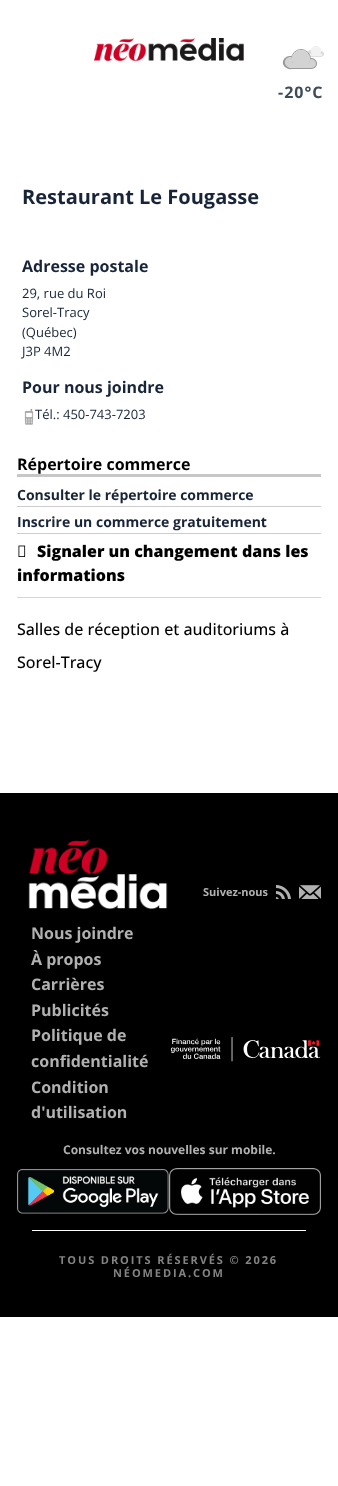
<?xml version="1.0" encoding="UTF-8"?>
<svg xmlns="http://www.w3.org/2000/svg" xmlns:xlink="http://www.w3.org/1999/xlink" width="338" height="1486">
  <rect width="100%" height="100%" fill="#ffffff" />
  <image x="94" y="38" width="150" height="23" xlink:href="image1.png" />
  <path d="M 321 51 h -0.5 c 0.5 2 -0.5 3.5 -2 4.5 c 2 3.5 7.5 0 5 -3 c -0.5 -1 -1.5 -1.5 -2.5 -1.5 z m -10.5 -1 c -1 0 -2 0.5 -2.5 1 c -3.5 3.5 3 8.5 5.5 4.5 c -1.5 -1.5 -2.5 -3.5 -2 -5.5 z" fill="#e0e0e0" />
  <rect x="311.3" y="46.3" width="9.4" height="10.4" rx="4.7" fill="none" stroke="#e0e0e0" stroke-width="0.6" />
  <path d="M 321 52 h -0.5 c 0 1 -0.5 2 -1.5 3 c 0.5 0.5 1 1 2 1 c 4 0 3.5 -4 1 -4 z m -10 -2 c -6 0 -2 9 2 5 c -1.5 -1 -2 -3 -1.5 -5 z" fill="#d3d3d3" fill-opacity="0.3" />
  <rect x="311" y="47" width="10" height="9" rx="4.5" fill="#f2f2f2" />
  <rect x="311" y="56" width="10" height="1" fill="#e0e0e0" />
  <rect x="310" y="54" width="12" height="2" fill="#f2f2f2" />
  <path d="M 311.5 58 h -1.5 c 0 3 -1 6 -3.5 8 c 3.5 6.5 14 1 9.5 -5.5 c -1 -1.5 -2.5 -2.5 -4.5 -2.5 z m -22 -2 c -2 0 -4 1 -5.5 3 c -5 7.5 7 14 12 7.5 c -3.5 -2.5 -4.5 -6.5 -3.5 -10 l -2 -0.5 z" fill="#999999" />
  <circle cx="301" cy="59" r="9.5" fill="none" stroke="#999999" />
  <path d="M 311.5 59 l -1.5 0.5 c 0 2 -1 4.5 -2.5 6 c 2.5 5.5 11.5 1 7.5 -4.5 c -0.5 -1 -2 -2 -3.5 -2 z m -21 -2 c -1.5 0 -3 0.5 -4 1.5 c -5.5 5.5 4 13.5 8.5 7 c -2.5 -2 -3.5 -5 -3 -8 z" fill="#d3d3d3" />
  <circle cx="301" cy="59" r="9" fill="#d3d3d3" />
  <rect x="290" y="68" width="21" height="1" fill="#999999" />
  <rect x="289" y="63" width="23" height="5" fill="#d3d3d3" />
  <image x="24" y="408" width="10" height="17" xlink:href="image2.png" />
  <rect x="17" y="474" width="304" height="3" fill="#c7c7c7" />
  <rect x="17" y="506" width="304" height="1" fill="#cdcdcd" />
  <rect x="17" y="533" width="304" height="1" fill="#cdcdcd" />
  <rect x="17" y="597" width="304" height="1" fill="#d7d7d7" />
  <image x="18" y="545" width="8" height="12" xlink:href="image3.png" />
  <rect y="793" width="338" height="524" fill="#000000" />
  <image x="276" y="885" width="15" height="14" xlink:href="image4.png" />
  <image x="299" y="885" width="22" height="14" xlink:href="image5.png" />
  <image x="170" y="1037" width="151" height="25" xlink:href="image6.png" />
  <image x="28" y="839" width="140" height="71" xlink:href="image7.png" />
  <image x="17" y="1169" width="152" height="45" xlink:href="image8.png" />
  <image x="169" y="1168" width="152" height="47" xlink:href="image9.png" />
  <rect x="32" y="1230" width="274" height="1" fill="#ffffff" />
  <text x="278" y="98" style="font-family: Open Sans; font-size: 16px; font-weight: bold; letter-spacing: 1px; fill: #3e4c57">-20°C</text>
  <text x="22" y="204" style="font-family: Open Sans; font-size: 20px; font-weight: bold; fill: #182539">Restaurant Le Fougasse</text>
  <text x="22" y="272" style="font-family: Open Sans; font-size: 16px; font-weight: bold; fill: #182539">Adresse postale</text>
  <text x="22" y="298" style="font-family: Open Sans; font-size: 13px; fill: #182539">29, rue du Roi</text>
  <text x="22" y="317" style="font-family: Open Sans; font-size: 13px; fill: #182539">Sorel-Tracy</text>
  <text x="22" y="337" style="font-family: Open Sans; font-size: 13px; fill: #182539">(Québec)</text>
  <text x="22" y="356" style="font-family: Open Sans; font-size: 13px; fill: #182539">J3P 4M2</text>
  <text x="22" y="393" style="font-family: Open Sans; font-size: 16px; font-weight: bold; fill: #182539">Pour nous joindre</text>
  <text x="35" y="419" style="font-family: Open Sans; font-size: 13px; fill: #182539">Tél.: 450-743-7203</text>
  <text x="17" y="470" style="font-family: Open Sans; font-size: 16px; font-weight: bold; fill: #000000">Répertoire commerce</text>
  <text x="17" y="500" style="font-family: Open Sans; font-size: 14px; font-weight: bold; fill: #182539">Consulter le répertoire commerce</text>
  <text x="17" y="527" style="font-family: Open Sans; font-size: 14px; font-weight: bold; fill: #182539">Inscrire un commerce gratuitement</text>
  <text x="37" y="557" style="font-family: Open Sans; font-size: 16px; font-weight: 800; fill: #000000">Signaler un changement dans les</text>
  <text x="17" y="581" style="font-family: Open Sans; font-size: 16px; font-weight: 800; fill: #000000">informations</text>
  <text x="17" y="635" style="font-family: Open Sans; font-size: 16px; font-weight: 500; fill: #000000">Salles de réception et auditoriums à</text>
  <text x="17" y="668" style="font-family: Open Sans; font-size: 16px; font-weight: 500; fill: #000000">Sorel-Tracy</text>
  <text x="203" y="896" style="font-family: Open Sans; font-size: 11px; font-weight: bold; fill: #b1b1b1">Suivez-nous</text>
  <text x="31" y="939" style="font-family: Open Sans; font-size: 16px; font-weight: bold; fill: #b1b1b1">Nous joindre</text>
  <text x="31" y="965" style="font-family: Open Sans; font-size: 16px; font-weight: bold; fill: #b1b1b1">À propos</text>
  <text x="31" y="990" style="font-family: Open Sans; font-size: 16px; font-weight: bold; fill: #b1b1b1">Carrières</text>
  <text x="31" y="1016" style="font-family: Open Sans; font-size: 16px; font-weight: bold; fill: #b1b1b1">Publicités</text>
  <text x="31" y="1041" style="font-family: Open Sans; font-size: 16px; font-weight: bold; fill: #b1b1b1">Politique de</text>
  <text x="31" y="1067" style="font-family: Open Sans; font-size: 16px; font-weight: bold; fill: #b1b1b1">confidentialité</text>
  <text x="31" y="1093" style="font-family: Open Sans; font-size: 16px; font-weight: bold; fill: #b1b1b1">Condition</text>
  <text x="31" y="1118" style="font-family: Open Sans; font-size: 16px; font-weight: bold; fill: #b1b1b1">d'utilisation</text>
  <text x="63" y="1154" style="font-family: Open Sans; font-size: 12px; font-weight: bold; fill: #b1b1b1">Consultez vos nouvelles sur mobile.</text>
  <text x="59" y="1264" style="font-family: Open Sans; font-size: 11px; font-weight: bold; letter-spacing: 1.9px; fill: #838383">TOUS DROITS RÉSERVÉS © 2026</text>
  <text x="113" y="1277" style="font-family: Open Sans; font-size: 11px; font-weight: bold; letter-spacing: 1.9px; fill: #838383">NÉOMEDIA.COM</text>
</svg>
